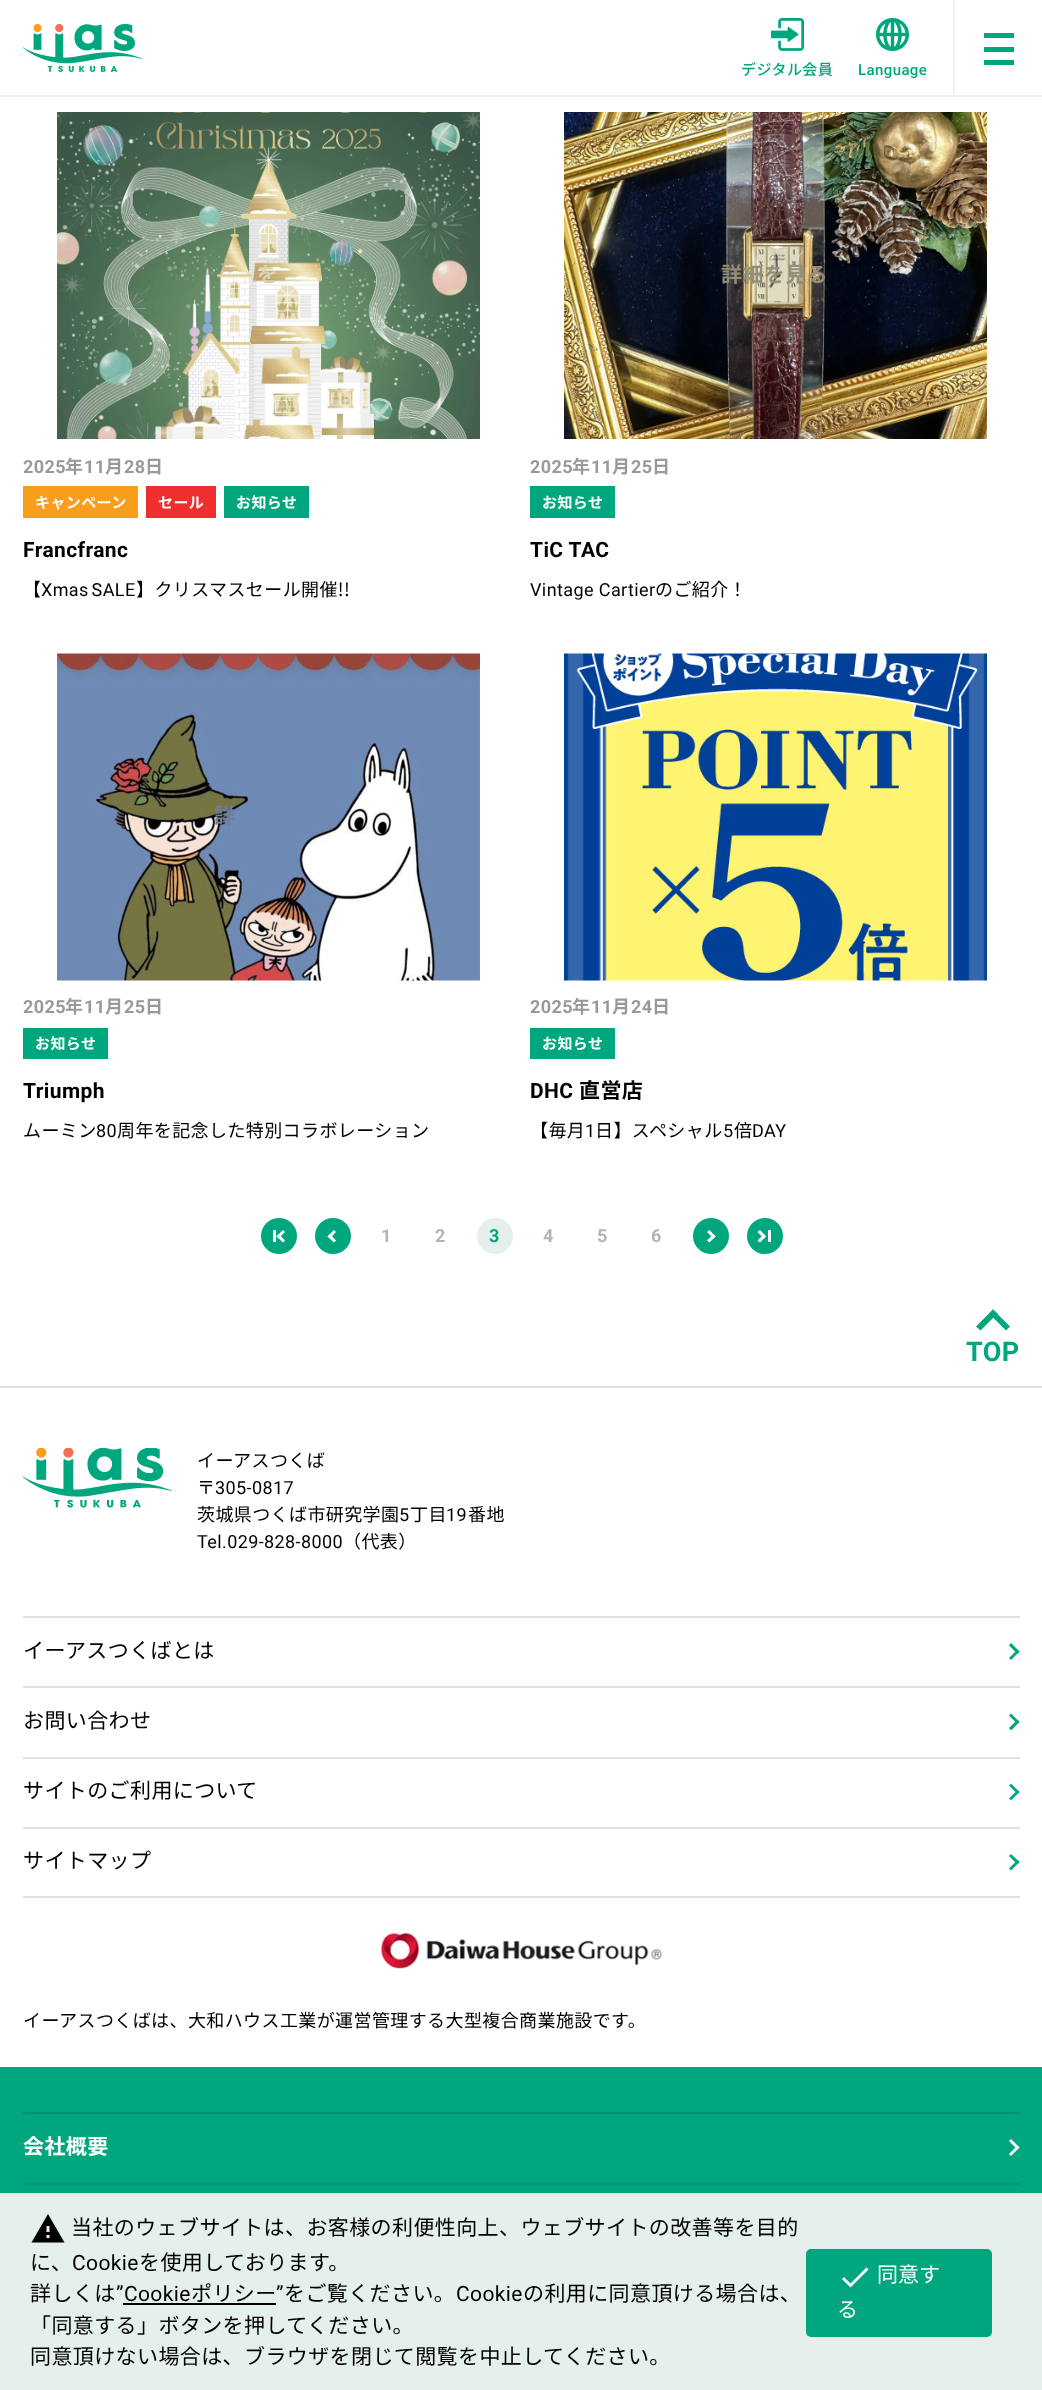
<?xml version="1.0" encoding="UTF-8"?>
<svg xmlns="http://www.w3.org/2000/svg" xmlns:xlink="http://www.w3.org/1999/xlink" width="1042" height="2390">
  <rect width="100%" height="100%" fill="#ffffff" />
  <image x="23" y="24" width="119" height="48" xlink:href="image1.png" />
  <image x="771" y="18" width="33" height="33" xlink:href="image2.png" />
  <image x="876" y="18" width="33" height="33" xlink:href="image3.png" />
  <rect y="95" width="1042" height="2" fill="#f0f0f0" />
  <rect x="953" width="2" height="96" fill="#f0f0f0" />
  <rect x="984" y="33" width="30" height="5" fill="#00a77e" />
  <rect x="984" y="47" width="30" height="5" fill="#00a77e" />
  <rect x="984" y="60" width="30" height="5" fill="#00a77e" />
  <image x="57" y="112" width="423" height="327" xlink:href="image4.png" />
  <rect x="23" y="486" width="115" height="32" fill="#f99d1c" />
  <rect x="146" y="486" width="70" height="32" fill="#ef2e2e" />
  <rect x="224" y="486" width="85" height="32" fill="#00a77e" />
  <image x="564" y="112" width="423" height="327" xlink:href="image5.png" />
  <rect x="530" y="486" width="85" height="32" fill="#00a77e" />
  <image x="57" y="653" width="423" height="328" xlink:href="image6.png" />
  <rect x="23" y="1028" width="85" height="31" fill="#00a77e" />
  <image x="564" y="653" width="423" height="328" xlink:href="image7.png" />
  <rect x="530" y="1028" width="85" height="31" fill="#00a77e" />
  <circle cx="279" cy="1236" r="18" fill="#00a77e" />
  <rect x="273" y="1230" width="3" height="12" fill="#ffffff" />
  <path d="M 276.5 1236.5 l 6.5 -6.5 l 2 2 l -6.5 6.5 z" fill="#ffffff" />
  <path d="M 276.5 1236.5 l 2 -2.5 l 6.5 6.5 l -2 2 z" fill="#ffffff" />
  <circle cx="333" cy="1236" r="18" fill="#00a77e" />
  <path d="M 327.5 1236.5 l 6.5 -6.5 l 2 2 l -6 6.5 z" fill="#ffffff" />
  <path d="M 327.5 1236.5 l 2.5 -2.5 l 6 6.5 l -2 2 z" fill="#ffffff" />
  <circle cx="495" cy="1236" r="18" fill="#e5efec" />
  <circle cx="711" cy="1236" r="18" fill="#00a77e" />
  <path d="M 715.5 1236.5 l -6 6 l -2.5 -2 l 6.5 -6.5 z" fill="#ffffff" />
  <path d="M 715.5 1236.5 l -2 2 l -6.5 -6.5 l 2.5 -2 z" fill="#ffffff" />
  <circle cx="765" cy="1236" r="18" fill="#00a77e" />
  <path d="M 766 1236.5 l -6 6 l -2.5 -2 l 6.5 -6.5 z" fill="#ffffff" />
  <path d="M 766 1236.5 l -2 2 l -6.5 -6.5 l 2.5 -2 z" fill="#ffffff" />
  <rect x="768" y="1230" width="3" height="12" fill="#ffffff" />
  <rect y="1386" width="1042" height="2" fill="#e0e0e0" />
  <path d="M 976 1326.5 l 17 -17 l 4.5 4 l -17 17 z" fill="#00a77e" />
  <path d="M 989 1313.5 l 4 -4 l 17 17 l -4 4 z" fill="#00a77e" />
  <image x="23" y="1448" width="149" height="60" xlink:href="image8.png" />
  <rect x="23" y="1896" width="997" height="2" fill="#e0e0e0" />
  <rect x="23" y="1616" width="997" height="2" fill="#e0e0e0" />
  <path d="M 1011 1643 l 8.5 8.5 l -2 2.5 l -8.5 -8.5 z" fill="#00a77e" />
  <path d="M 1017.5 1649.5 l 2 2 l -8.5 8.5 l -2 -2 z" fill="#00a77e" />
  <rect x="23" y="1686" width="997" height="2" fill="#e0e0e0" />
  <path d="M 1011 1713.5 l 8.5 8.5 l -2 2 l -8.5 -8.5 z" fill="#00a77e" />
  <path d="M 1017.5 1719.5 l 2 2.5 l -8.5 8.5 l -2 -2.5 z" fill="#00a77e" />
  <rect x="23" y="1757" width="997" height="2" fill="#e0e0e0" />
  <path d="M 1011 1783.5 l 8.5 8.5 l -2 2 l -8.5 -8.5 z" fill="#00a77e" />
  <path d="M 1017.5 1790 l 2 2 l -8.5 8.5 l -2 -2 z" fill="#00a77e" />
  <rect x="23" y="1827" width="997" height="2" fill="#e0e0e0" />
  <path d="M 1011 1854 l 8.5 8 l -2 2.5 l -8.5 -8.5 z" fill="#00a77e" />
  <path d="M 1017.5 1860 l 2 2 l -8.5 8.5 l -2 -2 z" fill="#00a77e" />
  <image x="381" y="1933" width="282" height="36" xlink:href="image9.png" />
  <rect y="2067" width="1042" height="126" fill="#00a77e" />
  <rect x="23" y="2112" width="997" height="2" fill="#00936f" />
  <path d="M 1011 2139 l 8.5 8.5 l -2 2 l -8.5 -8.5 z" fill="#ffffff" />
  <path d="M 1017.5 2145.5 l 2 2 l -8.5 8.5 l -2 -2 z" fill="#ffffff" />
  <rect x="23" y="2183" width="997" height="2" fill="#00936f" />
  <rect y="2193" width="1042" height="197" fill="#e5efec" />
  <path d="M 49.5 2232 v -6 h -3 v 6 z m 0 6 v -3 h -3 v 3 z m -18 4.5 l 16.5 -28.5 l 16.5 28.5 z" fill="#000000" />
  <rect x="123" y="2303" width="153" height="2" fill="#000000" />
  <rect x="806" y="2249" width="186" height="88" rx="5" fill="#00a77e" />
  <path d="M 850.5 2283.5 l 16 -16 l 2 2 l -18 18 l -8.5 -8.5 l 2 -2 z" fill="#ffffff" />
  <text x="741" y="75" style="font-family: Noto Sans JP; font-size: 15px; font-weight: 500; letter-spacing: 0.4px; fill: #00a77e">デジタル会員</text>
  <text x="858" y="75" style="font-family: Roboto; font-size: 15px; font-weight: 500; letter-spacing: 0.4px; fill: #00a77e">Language</text>
  <text x="257" y="282" style="font-family: Noto Sans JP; font-size: 21px; font-weight: bold; letter-spacing: 0.4px; fill: #dbd3b3">を</text>
  <text x="23" y="473" style="font-family: Roboto; font-size: 18px; font-weight: bold; letter-spacing: 0.4px; fill: #999999">2025</text>
  <text x="65" y="473" style="font-family: Noto Sans JP; font-size: 18px; font-weight: bold; letter-spacing: 0.4px; fill: #999999">年</text>
  <text x="84" y="473" style="font-family: Roboto; font-size: 18px; font-weight: bold; letter-spacing: 0.4px; fill: #999999">11</text>
  <text x="105" y="473" style="font-family: Noto Sans JP; font-size: 18px; font-weight: bold; letter-spacing: 0.4px; fill: #999999">月</text>
  <text x="124" y="473" style="font-family: Roboto; font-size: 18px; font-weight: bold; letter-spacing: 0.4px; fill: #999999">28</text>
  <text x="145" y="473" style="font-family: Noto Sans JP; font-size: 18px; font-weight: bold; letter-spacing: 0.4px; fill: #999999">日</text>
  <text x="35" y="508" style="font-family: Noto Sans JP; font-size: 15px; font-weight: bold; letter-spacing: 0.4px; fill: #ffffff">キャンペーン</text>
  <text x="158" y="508" style="font-family: Noto Sans JP; font-size: 15px; font-weight: bold; letter-spacing: 0.4px; fill: #ffffff">セール</text>
  <text x="236" y="508" style="font-family: Noto Sans JP; font-size: 15px; font-weight: bold; letter-spacing: 0.4px; fill: #ffffff">お知らせ</text>
  <text x="23" y="557" style="font-family: Roboto; font-size: 21px; font-weight: bold; letter-spacing: 0.4px; fill: #000000">Francfranc</text>
  <text x="23" y="596" style="font-family: Noto Sans JP; font-size: 18px; letter-spacing: 0.4px; fill: #000000">【</text>
  <text x="41" y="596" word-spacing="-2" style="font-family: Roboto; font-size: 18px; letter-spacing: 0.4px; fill: #000000">Xmas SALE</text>
  <text x="136" y="596" style="font-family: Noto Sans JP; font-size: 18px; letter-spacing: 0.4px; fill: #000000">】クリスマスセール開催!!</text>
  <text x="721" y="282" style="font-family: Noto Sans JP; font-size: 21px; font-weight: bold; letter-spacing: 0.4px; fill: #948d78">詳細を見る</text>
  <text x="530" y="473" style="font-family: Roboto; font-size: 18px; font-weight: bold; letter-spacing: 0.4px; fill: #999999">2025</text>
  <text x="572" y="473" style="font-family: Noto Sans JP; font-size: 18px; font-weight: bold; letter-spacing: 0.4px; fill: #999999">年</text>
  <text x="591" y="473" style="font-family: Roboto; font-size: 18px; font-weight: bold; letter-spacing: 0.4px; fill: #999999">11</text>
  <text x="612" y="473" style="font-family: Noto Sans JP; font-size: 18px; font-weight: bold; letter-spacing: 0.4px; fill: #999999">月</text>
  <text x="631" y="473" style="font-family: Roboto; font-size: 18px; font-weight: bold; letter-spacing: 0.4px; fill: #999999">25</text>
  <text x="652" y="473" style="font-family: Noto Sans JP; font-size: 18px; font-weight: bold; letter-spacing: 0.4px; fill: #999999">日</text>
  <text x="542" y="508" style="font-family: Noto Sans JP; font-size: 15px; font-weight: bold; letter-spacing: 0.4px; fill: #ffffff">お知らせ</text>
  <text x="530" y="557" style="font-family: Roboto; font-size: 21px; font-weight: bold; letter-spacing: 0.4px; fill: #000000">TiC TAC</text>
  <text x="530" y="596" style="font-family: Roboto; font-size: 18px; letter-spacing: 0.4px; fill: #000000">Vintage Cartier</text>
  <text x="655" y="596" style="font-family: Noto Sans JP; font-size: 18px; letter-spacing: 0.4px; fill: #000000">のご紹介！</text>
  <text x="214" y="823" style="font-family: Noto Sans JP; font-size: 21px; font-weight: bold; letter-spacing: 0.4px; fill: #6a7f9e">詳</text>
  <text x="23" y="1013" style="font-family: Roboto; font-size: 18px; font-weight: bold; letter-spacing: 0.4px; fill: #999999">2025</text>
  <text x="65" y="1013" style="font-family: Noto Sans JP; font-size: 18px; font-weight: bold; letter-spacing: 0.4px; fill: #999999">年</text>
  <text x="84" y="1013" style="font-family: Roboto; font-size: 18px; font-weight: bold; letter-spacing: 0.4px; fill: #999999">11</text>
  <text x="105" y="1013" style="font-family: Noto Sans JP; font-size: 18px; font-weight: bold; letter-spacing: 0.4px; fill: #999999">月</text>
  <text x="124" y="1013" style="font-family: Roboto; font-size: 18px; font-weight: bold; letter-spacing: 0.4px; fill: #999999">25</text>
  <text x="145" y="1013" style="font-family: Noto Sans JP; font-size: 18px; font-weight: bold; letter-spacing: 0.4px; fill: #999999">日</text>
  <text x="35" y="1049" style="font-family: Noto Sans JP; font-size: 15px; font-weight: bold; letter-spacing: 0.4px; fill: #ffffff">お知らせ</text>
  <text x="23" y="1098" style="font-family: Roboto; font-size: 21px; font-weight: bold; letter-spacing: 0.4px; fill: #000000">Triumph</text>
  <text x="23" y="1137" style="font-family: Noto Sans JP; font-size: 18px; letter-spacing: 0.4px; fill: #000000">ムーミン</text>
  <text x="96" y="1137" style="font-family: Roboto; font-size: 18px; letter-spacing: 0.4px; fill: #000000">80</text>
  <text x="117" y="1137" style="font-family: Noto Sans JP; font-size: 18px; letter-spacing: 0.4px; fill: #000000">周年を記念した特別コラボレーション</text>
  <text x="530" y="1013" style="font-family: Roboto; font-size: 18px; font-weight: bold; letter-spacing: 0.4px; fill: #999999">2025</text>
  <text x="572" y="1013" style="font-family: Noto Sans JP; font-size: 18px; font-weight: bold; letter-spacing: 0.4px; fill: #999999">年</text>
  <text x="591" y="1013" style="font-family: Roboto; font-size: 18px; font-weight: bold; letter-spacing: 0.4px; fill: #999999">11</text>
  <text x="612" y="1013" style="font-family: Noto Sans JP; font-size: 18px; font-weight: bold; letter-spacing: 0.4px; fill: #999999">月</text>
  <text x="631" y="1013" style="font-family: Roboto; font-size: 18px; font-weight: bold; letter-spacing: 0.4px; fill: #999999">24</text>
  <text x="652" y="1013" style="font-family: Noto Sans JP; font-size: 18px; font-weight: bold; letter-spacing: 0.4px; fill: #999999">日</text>
  <text x="542" y="1049" style="font-family: Noto Sans JP; font-size: 15px; font-weight: bold; letter-spacing: 0.4px; fill: #ffffff">お知らせ</text>
  <text x="530" y="1098" style="font-family: Roboto; font-size: 21px; font-weight: bold; letter-spacing: 0.4px; fill: #000000">DHC</text>
  <text x="579" y="1098" style="font-family: Noto Sans JP; font-size: 21px; font-weight: bold; letter-spacing: 0.4px; fill: #000000">直営店</text>
  <text x="530" y="1137" style="font-family: Noto Sans JP; font-size: 18px; letter-spacing: 0.4px; fill: #000000">【毎月</text>
  <text x="585" y="1137" style="font-family: Roboto; font-size: 18px; letter-spacing: 0.4px; fill: #000000">1</text>
  <text x="595" y="1137" style="font-family: Noto Sans JP; font-size: 18px; letter-spacing: 0.4px; fill: #000000">日】スペシャル</text>
  <text x="723" y="1137" style="font-family: Roboto; font-size: 18px; letter-spacing: 0.4px; fill: #000000">5</text>
  <text x="734" y="1137" style="font-family: Noto Sans JP; font-size: 18px; letter-spacing: 0.4px; fill: #000000">倍</text>
  <text x="752" y="1137" style="font-family: Roboto; font-size: 18px; letter-spacing: 0.4px; fill: #000000">DAY</text>
  <text x="381" y="1242" style="font-family: Roboto; font-size: 18px; font-weight: bold; letter-spacing: 0.4px; fill: #b4b4b4">1</text>
  <text x="435" y="1242" style="font-family: Roboto; font-size: 18px; font-weight: bold; letter-spacing: 0.4px; fill: #b4b4b4">2</text>
  <text x="489" y="1242" style="font-family: Roboto; font-size: 18px; font-weight: bold; letter-spacing: 0.4px; fill: #00a77e">3</text>
  <text x="543" y="1242" style="font-family: Roboto; font-size: 18px; font-weight: bold; letter-spacing: 0.4px; fill: #b4b4b4">4</text>
  <text x="597" y="1242" style="font-family: Roboto; font-size: 18px; font-weight: bold; letter-spacing: 0.4px; fill: #b4b4b4">5</text>
  <text x="651" y="1242" style="font-family: Roboto; font-size: 18px; font-weight: bold; letter-spacing: 0.4px; fill: #b4b4b4">6</text>
  <text x="966" y="1361" style="font-family: Roboto; font-size: 27px; font-weight: bold; letter-spacing: 0.4px; fill: #00a77e">TOP</text>
  <text x="197" y="1467" style="font-family: Noto Sans JP; font-size: 18px; letter-spacing: 0.4px; fill: #000000">イーアスつくば</text>
  <text x="197" y="1494" style="font-family: Noto Sans JP; font-size: 18px; letter-spacing: 0.4px; fill: #000000">〒</text>
  <text x="215" y="1494" style="font-family: Roboto; font-size: 18px; letter-spacing: 0.4px; fill: #000000">305-0817</text>
  <text x="197" y="1521" style="font-family: Noto Sans JP; font-size: 18px; letter-spacing: 0.4px; fill: #000000">茨城県つくば市研究学園</text>
  <text x="399" y="1521" style="font-family: Roboto; font-size: 18px; letter-spacing: 0.4px; fill: #000000">5</text>
  <text x="410" y="1521" style="font-family: Noto Sans JP; font-size: 18px; letter-spacing: 0.4px; fill: #000000">丁目</text>
  <text x="446" y="1521" style="font-family: Roboto; font-size: 18px; letter-spacing: 0.4px; fill: #000000">19</text>
  <text x="468" y="1521" style="font-family: Noto Sans JP; font-size: 18px; letter-spacing: 0.4px; fill: #000000">番地</text>
  <text x="197" y="1548" style="font-family: Roboto; font-size: 18px; letter-spacing: 0.4px; fill: #000000">Tel.029-828-8000</text>
  <text x="343" y="1548" style="font-family: Noto Sans JP; font-size: 18px; letter-spacing: 0.4px; fill: #000000">（代表）</text>
  <text x="23" y="1658" style="font-family: Noto Sans JP; font-size: 21px; letter-spacing: 0.4px; fill: #000000">イーアスつくばとは</text>
  <text x="23" y="1728" style="font-family: Noto Sans JP; font-size: 21px; letter-spacing: 0.4px; fill: #000000">お問い合わせ</text>
  <text x="23" y="1798" style="font-family: Noto Sans JP; font-size: 21px; letter-spacing: 0.4px; fill: #000000">サイトのご利用について</text>
  <text x="23" y="1868" style="font-family: Noto Sans JP; font-size: 21px; letter-spacing: 0.4px; fill: #000000">サイトマップ</text>
  <text x="23" y="2027" style="font-family: Noto Sans JP; font-size: 18px; letter-spacing: 0.4px; fill: #000000">イーアスつくばは、大和ハウス工業が運営管理する大型複合商業施設です。</text>
  <text x="23" y="2154" style="font-family: Noto Sans JP; font-size: 21px; font-weight: bold; letter-spacing: 0.4px; fill: #ffffff">会社概要</text>
  <text x="71" y="2235" style="font-family: Noto Sans JP; font-size: 21px; letter-spacing: 0.4px; fill: #000000">当社のウェブサイトは、お客様の利便性向上、ウェブサイトの改善等を目的</text>
  <text x="30" y="2270" style="font-family: Noto Sans JP; font-size: 21px; letter-spacing: 0.4px; fill: #000000">に、</text>
  <text x="72" y="2270" style="font-family: Roboto; font-size: 21px; letter-spacing: 0.4px; fill: #000000">Cookie</text>
  <text x="139" y="2270" style="font-family: Noto Sans JP; font-size: 21px; letter-spacing: 0.4px; fill: #000000">を使用しております。</text>
  <text x="30" y="2301" style="font-family: Noto Sans JP; font-size: 21px; letter-spacing: 0.4px; fill: #000000">詳しくは</text>
  <text x="116" y="2301" style="font-family: Roboto; font-size: 21px; letter-spacing: 0.4px; fill: #000000">”Cookie</text>
  <text x="191" y="2301" style="font-family: Noto Sans JP; font-size: 21px; letter-spacing: 0.4px; fill: #000000">ポリシー</text>
  <text x="276" y="2301" style="font-family: Roboto; font-size: 21px; letter-spacing: 0.4px; fill: #000000">”</text>
  <text x="284" y="2301" style="font-family: Noto Sans JP; font-size: 21px; letter-spacing: 0.4px; fill: #000000">をご覧ください。</text>
  <text x="456" y="2301" style="font-family: Roboto; font-size: 21px; letter-spacing: 0.4px; fill: #000000">Cookie</text>
  <text x="523" y="2301" style="font-family: Noto Sans JP; font-size: 21px; letter-spacing: 0.4px; fill: #000000">の利用に同意頂ける場合は、</text>
  <text x="30" y="2333" style="font-family: Noto Sans JP; font-size: 21px; letter-spacing: 0.4px; fill: #000000">「同意する」ボタンを押してください。</text>
  <text x="30" y="2364" style="font-family: Noto Sans JP; font-size: 21px; letter-spacing: 0.4px; fill: #000000">同意頂けない場合は、ブラウザを閉じて閲覧を中止してください。</text>
  <text x="877" y="2282" style="font-family: Noto Sans JP; font-size: 21px; fill: #ffffff">同意す</text>
  <text x="837" y="2317" style="font-family: Noto Sans JP; font-size: 21px; fill: #ffffff">る</text>
</svg>
